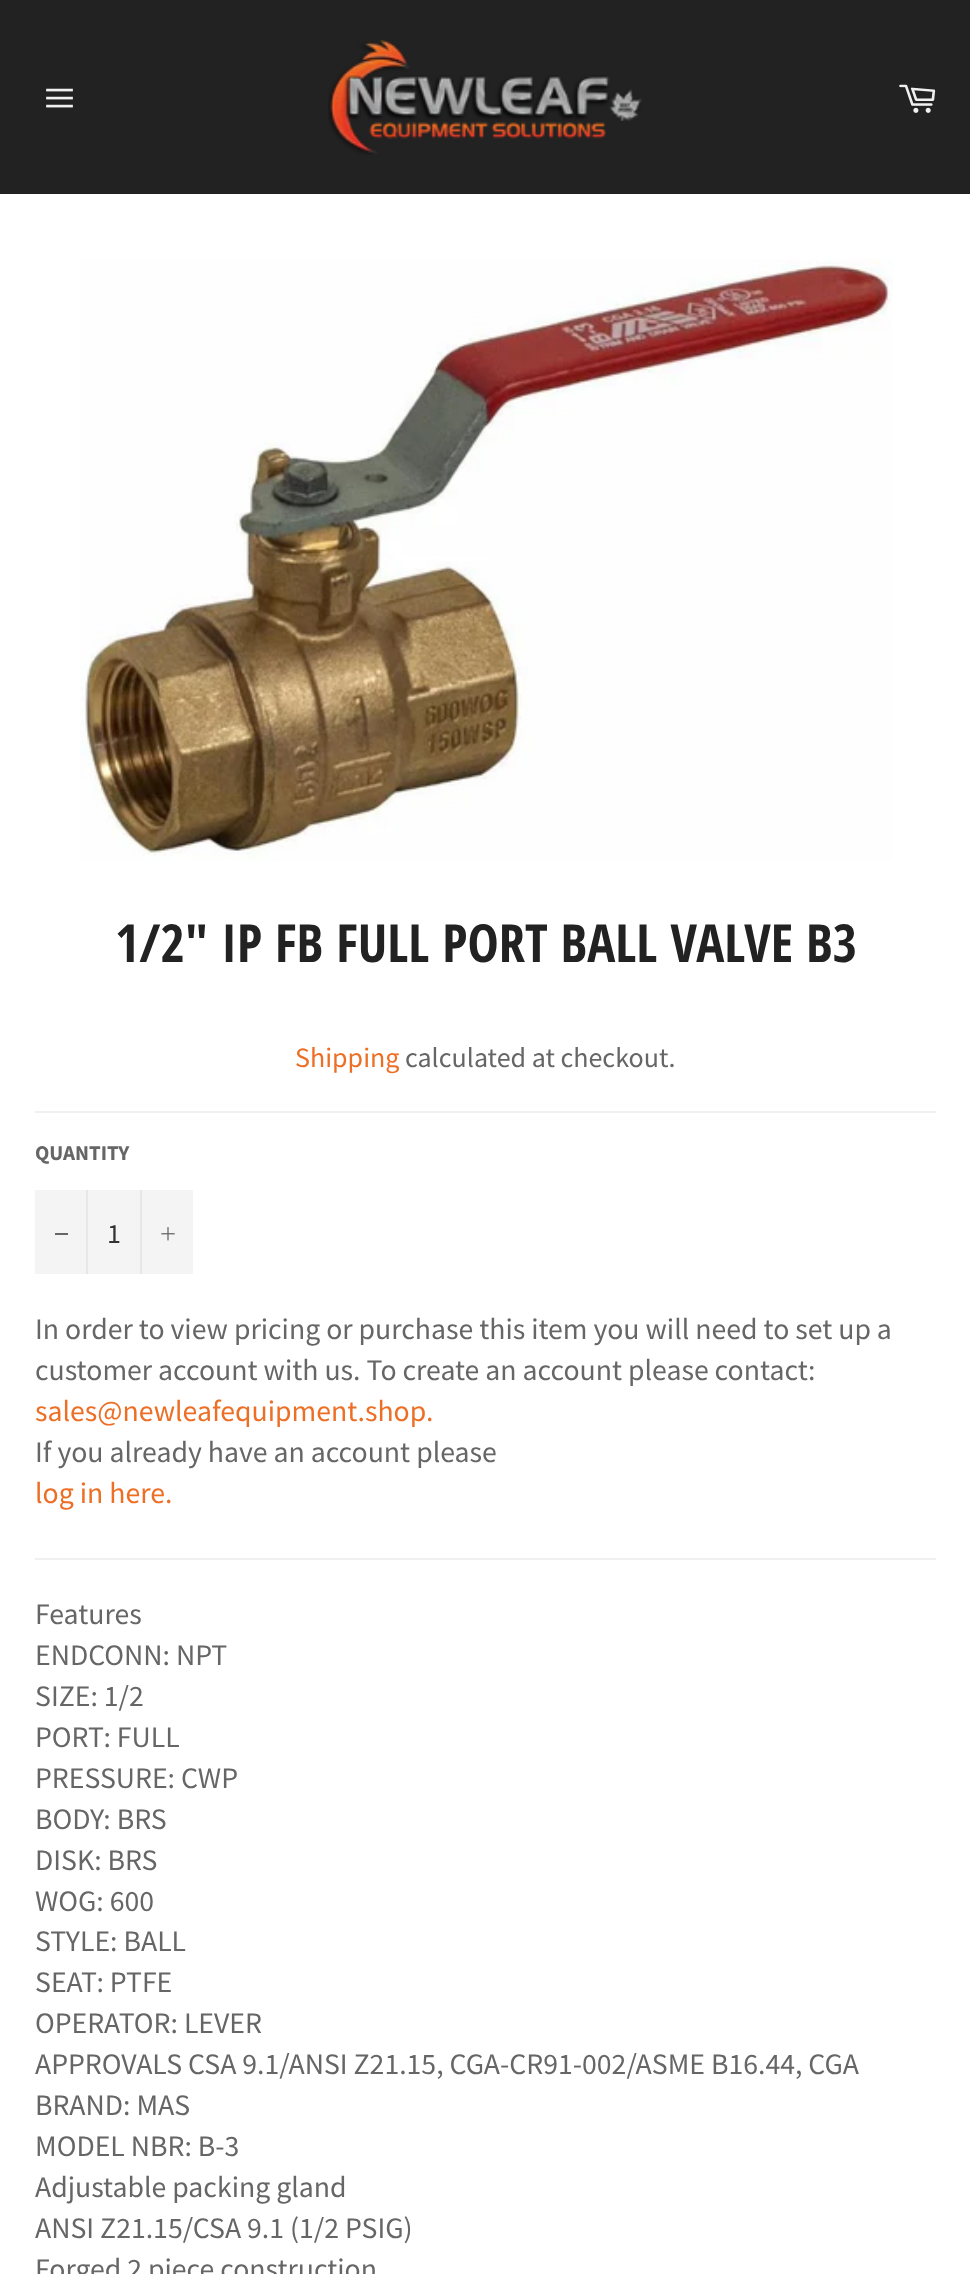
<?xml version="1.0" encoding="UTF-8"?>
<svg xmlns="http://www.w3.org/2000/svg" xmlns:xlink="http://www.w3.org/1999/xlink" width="970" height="2274">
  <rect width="100%" height="100%" fill="#222222" />
  <image x="46" y="88" width="27" height="20" xlink:href="image1.png" />
  <image x="328" y="40" width="314" height="115" xlink:href="image2.png" />
  <image x="899" y="84" width="37" height="29" xlink:href="image3.png" />
  <rect y="194" width="970" height="2080" fill="#ffffff" />
  <image x="80" y="259" width="813" height="602" xlink:href="image4.png" />
  <rect x="35" y="1111" width="901" height="2" fill="#f0f0f0" />
  <rect x="35" y="1190" width="158" height="84" fill="#f4f4f4" />
  <rect x="86" y="1190" width="2" height="84" fill="#e7e7e7" />
  <rect x="55" y="1233" width="13" height="2" fill="#666666" />
  <rect x="140" y="1190" width="2" height="84" fill="#e7e7e7" />
  <image x="161" y="1227" width="14" height="14" xlink:href="image5.png" />
  <rect x="35" y="1558" width="901" height="2" fill="#f0f0f0" />
  <text x="115" y="962" style="font-family: Open Sans Condensed; font-size: 52.5px; font-weight: bold; fill: #222222">1/2" IP FB FULL PORT BALL VALVE B3</text>
  <text x="295" y="1067" style="font-family: Source Sans Pro; font-size: 28px; fill: #ed6e25">Shipping</text>
  <text x="405" y="1067" style="font-family: Source Sans Pro; font-size: 28px; fill: #666666">calculated at checkout.</text>
  <text x="35" y="1160" style="font-family: Source Sans Pro; font-size: 21px; font-weight: bold; fill: #666666">QUANTITY</text>
  <text x="107" y="1243" style="font-family: Source Sans Pro; font-size: 28px; fill: #333333">1</text>
  <text x="35" y="1339" style="font-family: Source Sans Pro; font-size: 29.75px; fill: #666666">In order to view pricing or purchase this item you will need to set up a</text>
  <text x="35" y="1380" style="font-family: Source Sans Pro; font-size: 29.75px; fill: #666666">customer account with us. To create an account please contact:</text>
  <text x="35" y="1421" style="font-family: Source Sans Pro; font-size: 29.75px; fill: #ed6e25">sales@newleafequipment.shop.</text>
  <text x="35" y="1462" style="font-family: Source Sans Pro; font-size: 29.75px; fill: #666666">If you already have an account please</text>
  <text x="35" y="1503" style="font-family: Source Sans Pro; font-size: 29.75px; fill: #ed6e25">log in here.</text>
  <text x="35" y="1624" style="font-family: Source Sans Pro; font-size: 29.75px; fill: #666666">Features</text>
  <text x="35" y="1665" style="font-family: Source Sans Pro; font-size: 29.75px; fill: #666666">ENDCONN: NPT</text>
  <text x="35" y="1706" style="font-family: Source Sans Pro; font-size: 29.75px; fill: #666666">SIZE: 1/2</text>
  <text x="35" y="1747" style="font-family: Source Sans Pro; font-size: 29.75px; fill: #666666">PORT: FULL</text>
  <text x="35" y="1788" style="font-family: Source Sans Pro; font-size: 29.75px; fill: #666666">PRESSURE: CWP</text>
  <text x="35" y="1829" style="font-family: Source Sans Pro; font-size: 29.75px; fill: #666666">BODY: BRS</text>
  <text x="35" y="1870" style="font-family: Source Sans Pro; font-size: 29.75px; fill: #666666">DISK: BRS</text>
  <text x="35" y="1911" style="font-family: Source Sans Pro; font-size: 29.75px; fill: #666666">WOG: 600</text>
  <text x="35" y="1951" style="font-family: Source Sans Pro; font-size: 29.75px; fill: #666666">STYLE: BALL</text>
  <text x="35" y="1992" style="font-family: Source Sans Pro; font-size: 29.75px; fill: #666666">SEAT: PTFE</text>
  <text x="35" y="2033" style="font-family: Source Sans Pro; font-size: 29.75px; fill: #666666">OPERATOR: LEVER</text>
  <text x="35" y="2074" style="font-family: Source Sans Pro; font-size: 29.75px; fill: #666666">APPROVALS CSA 9.1/ANSI Z21.15, CGA-CR91-002/ASME B16.44, CGA</text>
  <text x="35" y="2115" style="font-family: Source Sans Pro; font-size: 29.75px; fill: #666666">BRAND: MAS</text>
  <text x="35" y="2156" style="font-family: Source Sans Pro; font-size: 29.75px; fill: #666666">MODEL NBR: B-3</text>
  <text x="35" y="2197" style="font-family: Source Sans Pro; font-size: 29.75px; fill: #666666">Adjustable packing gland</text>
  <text x="35" y="2238" style="font-family: Source Sans Pro; font-size: 29.75px; fill: #666666">ANSI Z21.15/CSA 9.1 (1/2 PSIG)</text>
  <text x="35" y="2279" style="font-family: Source Sans Pro; font-size: 29.75px; fill: #666666">Forged 2 piece construction</text>
</svg>
